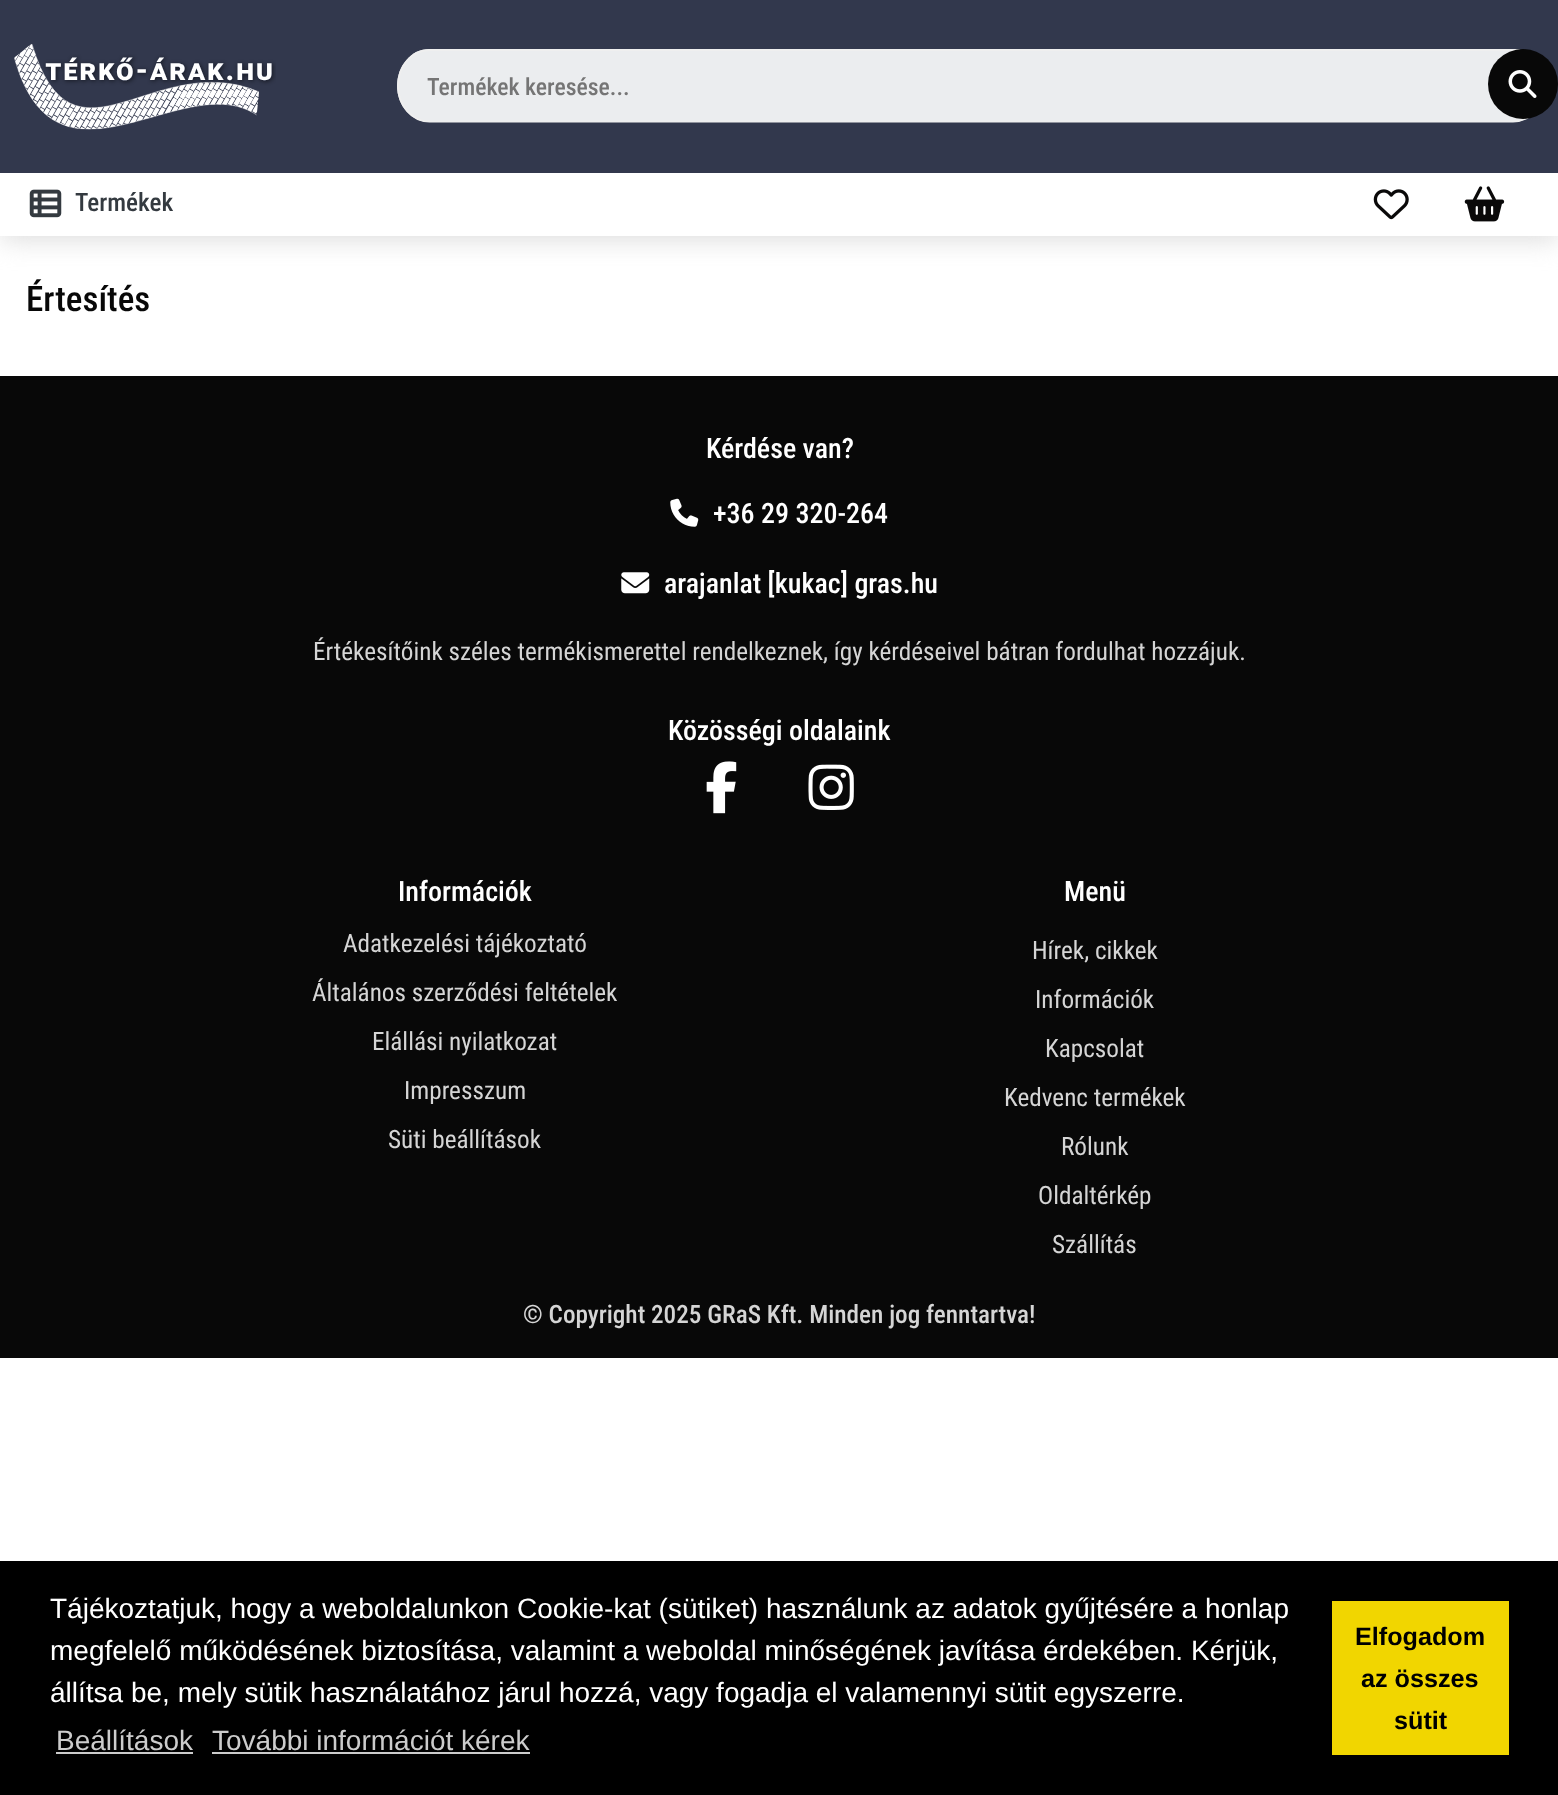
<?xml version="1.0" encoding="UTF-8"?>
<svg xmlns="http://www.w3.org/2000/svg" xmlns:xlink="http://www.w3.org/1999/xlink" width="1558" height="1795">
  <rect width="100%" height="100%" fill="#ffffff" />
  <rect y="4" width="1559" height="236" fill="#dddddd" filter="blur(13px)" />
  <rect width="1558" height="173" fill="#32384d" />
  <image x="14" y="44" width="262" height="86" xlink:href="image1.png" />
  <path d="M 429 49 h 1084 c 18 0 32 16 32 37 c 0 20 -14 36 -32 36 h -1084 c -17 0 -32 -16 -32 -36 c 0 -21 15 -37 32 -37 z" fill="#ebedef" />
  <path d="M 429.5 50 h 1083.5 c 17.5 0 31.5 16 31.5 36 c 0 19.5 -14 35.5 -31.5 35.5 h -1083.5 c -17.5 0 -31.5 -16 -31.5 -35.5 c 0 -20 14 -36 31.5 -36 z" fill="none" stroke="#efefef" stroke-width="1.8" />
  <circle cx="1523" cy="84" r="35" fill="#080808" />
  <image x="1508" y="70" width="29" height="28" xlink:href="image2.png" />
  <rect y="173" width="1558" height="63" fill="#ffffff" />
  <image x="29" y="189" width="33" height="29" xlink:href="image3.png" />
  <image x="1373" y="189" width="36" height="31" xlink:href="image4.png" />
  <image x="1464" y="186" width="41" height="36" xlink:href="image5.png" />
  <rect y="376" width="1558" height="982" fill="#080808" />
  <image x="670" y="498" width="29" height="29" xlink:href="image6.png" />
  <image x="621" y="572" width="29" height="22" xlink:href="image7.png" />
  <image x="706" y="761" width="31" height="53" xlink:href="image8.png" />
  <image x="808" y="764" width="46" height="46" xlink:href="image9.png" />
  <rect y="1561" width="1558" height="234" fill="#000000" />
  <rect x="56" y="1752" width="137" height="2" fill="#cccccc" />
  <rect x="212" y="1752" width="318" height="2" fill="#cccccc" />
  <rect x="1332" y="1601" width="177" height="154" fill="#f1d600" />
  <text x="427" y="95" style="font-family: Roboto Condensed; font-size: 23.75px; font-weight: 500; fill: #757575">Termékek keresése...</text>
  <text x="75" y="211" style="font-family: Roboto Condensed; font-size: 25.2px; font-weight: 500; fill: #343a40">Termékek</text>
  <text x="26" y="311" style="font-family: Roboto Condensed; font-size: 35px; font-weight: 500; fill: #080808">Értesítés</text>
  <text x="706" y="458" style="font-family: Roboto Condensed; font-size: 28px; font-weight: 500; fill: #ffffff">Kérdése van?</text>
  <text x="713" y="523" style="font-family: Roboto Condensed; font-size: 28px; font-weight: 500; fill: #ffffff">+36 29 320-264</text>
  <text x="664" y="593" style="font-family: Roboto Condensed; font-size: 28px; font-weight: 500; fill: #ffffff">arajanlat [kukac] gras.hu</text>
  <text x="313" y="660" style="font-family: Roboto Condensed; font-size: 25.2px; fill: #d5d5d5">Értékesítőink széles termékismerettel rendelkeznek, így kérdéseivel bátran fordulhat hozzájuk.</text>
  <text x="668" y="740" style="font-family: Roboto Condensed; font-size: 28px; font-weight: 500; fill: #ffffff">Közösségi oldalaink</text>
  <text x="398" y="901" style="font-family: Roboto Condensed; font-size: 28px; font-weight: 500; fill: #ffffff">Információk</text>
  <text x="343" y="952" style="font-family: Roboto Condensed; font-size: 25.2px; fill: #d5d5d5">Adatkezelési tájékoztató</text>
  <text x="312" y="1001" style="font-family: Roboto Condensed; font-size: 25.2px; fill: #d5d5d5">Általános szerződési feltételek</text>
  <text x="372" y="1050" style="font-family: Roboto Condensed; font-size: 25.2px; fill: #d5d5d5">Elállási nyilatkozat</text>
  <text x="404" y="1099" style="font-family: Roboto Condensed; font-size: 25.2px; fill: #d5d5d5">Impresszum</text>
  <text x="388" y="1148" style="font-family: Roboto Condensed; font-size: 25.2px; fill: #d5d5d5">Süti beállítások</text>
  <text x="1064" y="901" style="font-family: Roboto Condensed; font-size: 28px; font-weight: 500; fill: #ffffff">Menü</text>
  <text x="1032" y="959" style="font-family: Roboto Condensed; font-size: 25.2px; fill: #d5d5d5">Hírek, cikkek</text>
  <text x="1035" y="1008" style="font-family: Roboto Condensed; font-size: 25.2px; fill: #d5d5d5">Információk</text>
  <text x="1045" y="1057" style="font-family: Roboto Condensed; font-size: 25.2px; fill: #d5d5d5">Kapcsolat</text>
  <text x="1004" y="1106" style="font-family: Roboto Condensed; font-size: 25.2px; fill: #d5d5d5">Kedvenc termékek</text>
  <text x="1061" y="1155" style="font-family: Roboto Condensed; font-size: 25.2px; fill: #d5d5d5">Rólunk</text>
  <text x="1038" y="1204" style="font-family: Roboto Condensed; font-size: 25.2px; fill: #d5d5d5">Oldaltérkép</text>
  <text x="1052" y="1253" style="font-family: Roboto Condensed; font-size: 25.2px; fill: #d5d5d5">Szállítás</text>
  <text x="523" y="1323" style="font-family: Roboto Condensed; font-size: 25.2px; font-weight: 500; fill: #d5d5d5">© Copyright 2025 GRaS Kft. Minden jog fenntartva!</text>
  <text x="50" y="1618" style="font-family: Liberation Sans; font-size: 28px; fill: #ffffff">Tájékoztatjuk, hogy a weboldalunkon Cookie-kat (sütiket) használunk az adatok gyűjtésére a honlap</text>
  <text x="50" y="1660" style="font-family: Liberation Sans; font-size: 28px; fill: #ffffff">megfelelő működésének biztosítása, valamint a weboldal minőségének javítása érdekében. Kérjük,</text>
  <text x="50" y="1702" style="font-family: Liberation Sans; font-size: 28px; fill: #ffffff">állítsa be, mely sütik használatához járul hozzá, vagy fogadja el valamennyi sütit egyszerre.</text>
  <text x="56" y="1750" style="font-family: Liberation Sans; font-size: 28px; fill: #cccccc">Beállítások</text>
  <text x="212" y="1750" style="font-family: Liberation Sans; font-size: 28px; fill: #cccccc">További információt kérek</text>
  <text x="1355" y="1645" style="font-family: Liberation Sans; font-size: 25.2px; font-weight: bold; fill: #000000">Elfogadom</text>
  <text x="1361" y="1687" style="font-family: Liberation Sans; font-size: 25.2px; font-weight: bold; fill: #000000">az összes</text>
  <text x="1394" y="1729" style="font-family: Liberation Sans; font-size: 25.2px; font-weight: bold; fill: #000000">sütit</text>
</svg>
